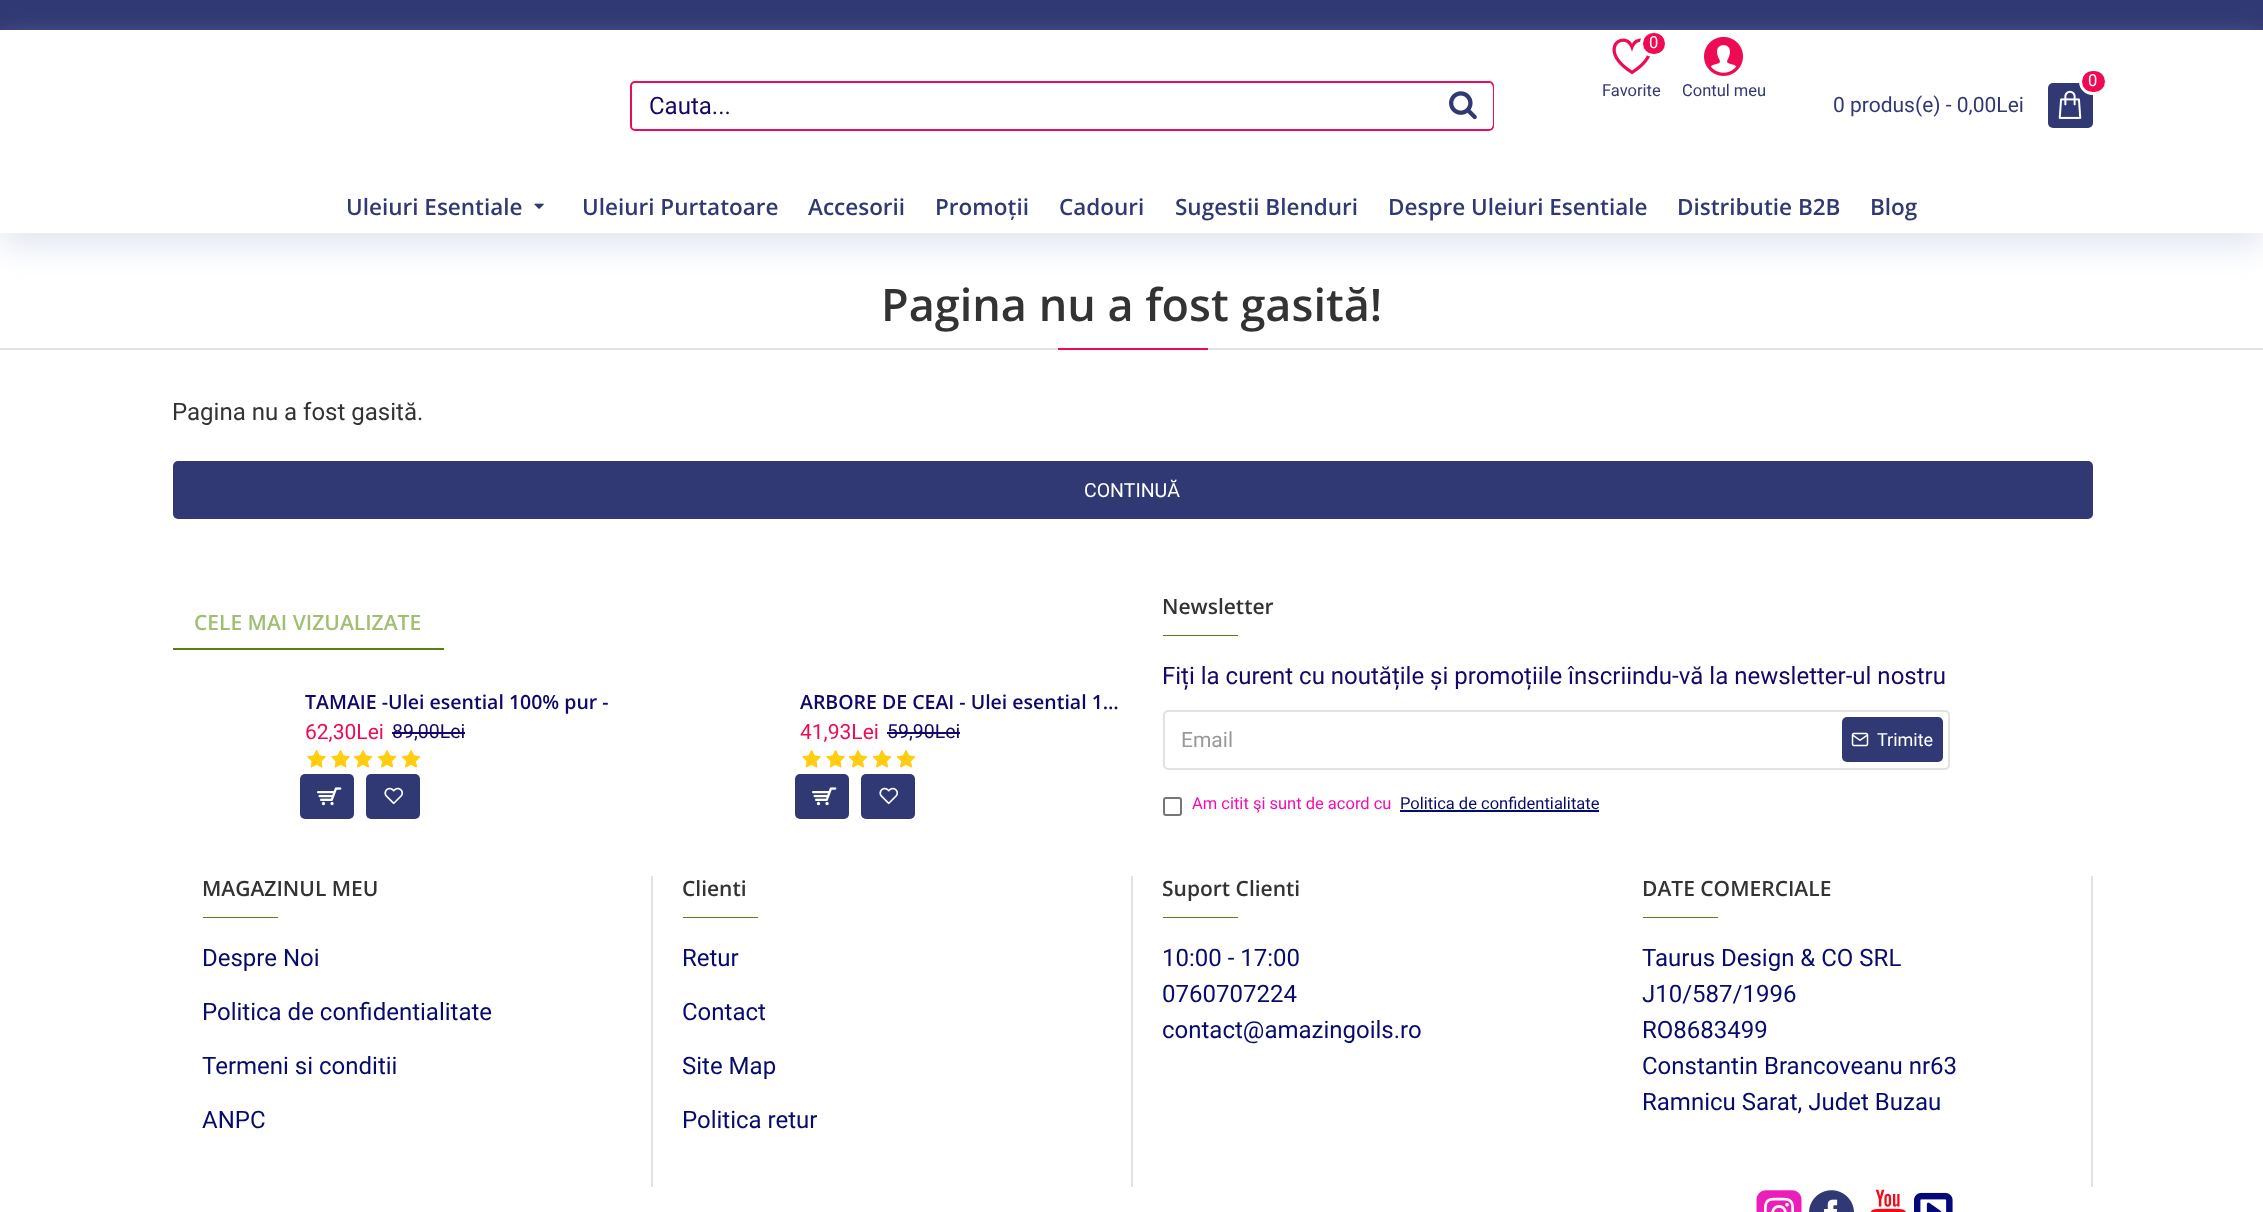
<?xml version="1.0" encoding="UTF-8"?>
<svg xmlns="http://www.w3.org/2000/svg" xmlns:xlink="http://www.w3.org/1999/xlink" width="2263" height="1212">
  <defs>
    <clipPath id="clip1"><rect x="1163" y="876" width="420" height="42" /></clipPath>
  </defs>
  <rect width="100%" height="100%" fill="#ffffff" />
  <rect width="2263" height="30" fill="#313974" />
  <rect y="45" width="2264" height="203" fill="#d0d8ea" fill-opacity="0.58" filter="blur(15px)" />
  <rect y="30" width="2263" height="203" fill="#ffffff" />
  <rect x="631" y="82" width="862" height="48" rx="4" fill="none" stroke="#ef0b53" stroke-width="2" />
  <path d="M 637 83 h 796 v 46 h -796 c -3 0 -5 -2 -5 -5 v -36 c 0 -3 2 -5 5 -5 z" fill="#ffffff" />
  <path d="M 1433 83 h 55 c 3 0 5 2 5 5 v 36 c 0 3 -2 5 -5 5 h -55 z" fill="#ffffff" />
  <image x="1449" y="91" width="28" height="29" xlink:href="image1.png" />
  <image x="1612" y="38" width="39" height="37" xlink:href="image2.png" />
  <rect x="1641.5" y="31.5" width="25" height="24" rx="12" fill="#ef0b53" stroke="#ffffff" stroke-width="3" />
  <image x="1704" y="36" width="39" height="40" xlink:href="image3.png" />
  <rect x="2048" y="83" width="45" height="45" rx="5" fill="#313974" />
  <image x="2058" y="90" width="24" height="29" xlink:href="image4.png" />
  <rect x="2080.5" y="69.5" width="26" height="24" rx="12" fill="#ef0b53" stroke="#ffffff" stroke-width="3" />
  <image x="534" y="203" width="10" height="6" xlink:href="image5.png" />
  <rect y="348" width="2263" height="2" fill="#e2e2e2" />
  <rect x="1058" y="348" width="150" height="2" fill="#ef0b53" />
  <rect x="173" y="461" width="1920" height="58" rx="5" fill="#313974" />
  <rect x="173" y="648" width="271" height="2" fill="#5b7e13" />
  <rect x="392" y="732" width="73" height="2" fill="#150766" />
  <image x="307" y="750" width="19" height="18" xlink:href="image6.png" />
  <image x="307" y="750" width="19" height="18" xlink:href="image7.png" />
  <image x="331" y="750" width="19" height="18" xlink:href="image6.png" />
  <image x="331" y="750" width="19" height="18" xlink:href="image7.png" />
  <image x="354" y="750" width="18" height="18" xlink:href="image8.png" />
  <image x="354" y="750" width="18" height="18" xlink:href="image9.png" />
  <image x="378" y="750" width="18" height="18" xlink:href="image8.png" />
  <image x="378" y="750" width="18" height="18" xlink:href="image9.png" />
  <image x="402" y="750" width="18" height="18" xlink:href="image8.png" />
  <image x="402" y="750" width="18" height="18" xlink:href="image9.png" />
  <rect x="300" y="774" width="54" height="45" rx="5" fill="#313974" />
  <image x="317" y="787" width="25" height="19" xlink:href="image10.png" />
  <rect x="366" y="774" width="54" height="45" rx="5" fill="#313974" />
  <image x="384" y="787" width="19" height="18" xlink:href="image11.png" />
  <rect x="887" y="732" width="73" height="2" fill="#150766" />
  <image x="802" y="750" width="19" height="18" xlink:href="image6.png" />
  <image x="802" y="750" width="19" height="18" xlink:href="image7.png" />
  <image x="826" y="750" width="19" height="18" xlink:href="image6.png" />
  <image x="826" y="750" width="19" height="18" xlink:href="image7.png" />
  <image x="849" y="750" width="18" height="18" xlink:href="image8.png" />
  <image x="849" y="750" width="18" height="18" xlink:href="image9.png" />
  <image x="873" y="750" width="18" height="18" xlink:href="image8.png" />
  <image x="873" y="750" width="18" height="18" xlink:href="image9.png" />
  <image x="897" y="750" width="18" height="18" xlink:href="image8.png" />
  <image x="897" y="750" width="18" height="18" xlink:href="image9.png" />
  <rect x="795" y="774" width="54" height="45" rx="5" fill="#313974" />
  <image x="812" y="787" width="25" height="19" xlink:href="image10.png" />
  <rect x="861" y="774" width="54" height="45" rx="5" fill="#313974" />
  <image x="879" y="787" width="19" height="18" xlink:href="image11.png" />
  <rect x="1163" y="635" width="75" height="1" fill="#5b7e13" />
  <rect x="1164" y="711" width="785" height="58" rx="4" fill="none" stroke="#e2e2e2" stroke-width="2" />
  <rect x="1842" y="717" width="101" height="45" rx="5" fill="#313974" />
  <image x="1851" y="732" width="18" height="15" xlink:href="image12.png" />
  <rect x="1164" y="798" width="17" height="17" rx="2" fill="none" stroke="#767676" stroke-width="2" />
  <rect x="1400" y="810" width="199" height="2" fill="#070c6c" />
  <rect x="651" y="876" width="2" height="311" fill="#e2e2e2" />
  <rect x="203" y="917" width="75" height="1" fill="#5b7e13" />
  <rect x="1131" y="876" width="2" height="311" fill="#e2e2e2" />
  <rect x="683" y="917" width="75" height="1" fill="#5b7e13" />
  <rect x="1163" y="917" width="75" height="1" fill="#5b7e13" />
  <rect x="2091" y="876" width="2" height="311" fill="#e2e2e2" />
  <rect x="1643" y="917" width="75" height="1" fill="#5b7e13" />
  <image x="1756" y="1190" width="46" height="22" xlink:href="image13.png" />
  <image x="1809" y="1190" width="45" height="22" xlink:href="image14.png" />
  <image x="1870" y="1189" width="36" height="23" xlink:href="image15.png" />
  <image x="1914" y="1192" width="39" height="20" xlink:href="image16.png" />
  <text x="649" y="114" style="font-family: Roboto; font-size: 24px; fill: #150766">Cauta...</text>
  <text x="1649" y="48" style="font-family: Roboto; font-size: 16.5px; fill: #ffffff">0</text>
  <text x="1602" y="96" style="font-family: Roboto; font-size: 16.5px; fill: #313974">Favorite</text>
  <text x="1682" y="96" style="font-family: Roboto; font-size: 16.5px; fill: #313974">Contul meu</text>
  <text x="2088" y="86" style="font-family: Roboto; font-size: 16.5px; fill: #ffffff">0</text>
  <text x="1833" y="112" style="font-family: Roboto; font-size: 21px; fill: #313974">0 produs(e) - 0,00Lei</text>
  <text x="346" y="215" style="font-family: Open Sans; font-size: 22.5px; font-weight: 600; fill: #313974">Uleiuri Esentiale</text>
  <text x="582" y="215" style="font-family: Open Sans; font-size: 22.5px; font-weight: 600; fill: #313974">Uleiuri Purtatoare</text>
  <text x="808" y="215" style="font-family: Open Sans; font-size: 22.5px; font-weight: 600; fill: #313974">Accesorii</text>
  <text x="935" y="215" style="font-family: Open Sans; font-size: 22.5px; font-weight: 600; fill: #313974">Promoții</text>
  <text x="1059" y="215" style="font-family: Open Sans; font-size: 22.5px; font-weight: 600; fill: #313974">Cadouri</text>
  <text x="1175" y="215" style="font-family: Open Sans; font-size: 22.5px; font-weight: 600; fill: #313974">Sugestii Blenduri</text>
  <text x="1388" y="215" style="font-family: Open Sans; font-size: 22.5px; font-weight: 600; fill: #313974">Despre Uleiuri Esentiale</text>
  <text x="1677" y="215" style="font-family: Open Sans; font-size: 22.5px; font-weight: 600; fill: #313974">Distributie B2B</text>
  <text x="1870" y="215" style="font-family: Open Sans; font-size: 22.5px; font-weight: 600; fill: #313974">Blog</text>
  <text x="881" y="321" style="font-family: Open Sans; font-size: 45px; font-weight: 600; fill: #333333">Pagina nu a fost gasită!</text>
  <text x="172" y="420" style="font-family: Roboto; font-size: 24px; fill: #333333">Pagina nu a fost gasită.</text>
  <text x="1084" y="497" style="font-family: Roboto; font-size: 19.5px; fill: #ffffff">CONTINUĂ</text>
  <text x="194" y="630" style="font-family: Open Sans; font-size: 21px; font-weight: 600; fill: #a0bf73">CELE MAI VIZUALIZATE</text>
  <text x="305" y="709" style="font-family: Open Sans; font-size: 19.5px; font-weight: 600; fill: #0f0769">TAMAIE -Ulei esential 100% pur -</text>
  <text x="305" y="739" style="font-family: Roboto; font-size: 21px; fill: #ef0b53">62,30Lei</text>
  <text x="392" y="738" style="font-family: Roboto; font-size: 19.5px; fill: #150766">89,00Lei</text>
  <text x="800" y="709" style="font-family: Open Sans; font-size: 19.5px; font-weight: 600; fill: #0f0769">ARBORE DE CEAI - Ulei esential 1…</text>
  <text x="800" y="739" style="font-family: Roboto; font-size: 21px; fill: #ef0b53">41,93Lei</text>
  <text x="887" y="738" style="font-family: Roboto; font-size: 19.5px; fill: #150766">59,90Lei</text>
  <text x="1162" y="614" style="font-family: Open Sans; font-size: 21px; font-weight: 600; fill: #333333">Newsletter</text>
  <text x="1162" y="684" style="font-family: Roboto; font-size: 24px; fill: #150766">Fiți la curent cu noutățile și promoțiile înscriindu-vă la newsletter-ul nostru</text>
  <text x="1181" y="747" style="font-family: Roboto; font-size: 21px; fill: #999999">Email</text>
  <text x="1877" y="746" style="font-family: Roboto; font-size: 18px; fill: #ffffff">Trimite</text>
  <text x="1192" y="809" style="font-family: Roboto; font-size: 16.5px; fill: #f30cb5">Am citit şi sunt de acord cu</text>
  <text x="1400" y="809" style="font-family: Roboto; font-size: 16.5px; fill: #070c6c">Politica de confidentialitate</text>
  <text x="202" y="896" style="font-family: Open Sans; font-size: 21px; font-weight: 600; fill: #333333">MAGAZINUL MEU</text>
  <text x="202" y="966" style="font-family: Roboto; font-size: 24px; fill: #070c6c">Despre Noi</text>
  <text x="202" y="1020" style="font-family: Roboto; font-size: 24px; fill: #070c6c">Politica de confidentialitate</text>
  <text x="202" y="1074" style="font-family: Roboto; font-size: 24px; fill: #070c6c">Termeni si conditii</text>
  <text x="202" y="1128" style="font-family: Roboto; font-size: 24px; fill: #070c6c">ANPC</text>
  <text x="682" y="896" style="font-family: Open Sans; font-size: 21px; font-weight: 600; fill: #333333">Clienti</text>
  <text x="682" y="966" style="font-family: Roboto; font-size: 24px; fill: #070c6c">Retur</text>
  <text x="682" y="1020" style="font-family: Roboto; font-size: 24px; fill: #070c6c">Contact</text>
  <text x="682" y="1074" style="font-family: Roboto; font-size: 24px; fill: #070c6c">Site Map</text>
  <text x="682" y="1128" style="font-family: Roboto; font-size: 24px; fill: #070c6c">Politica retur</text>
  <g clip-path="url(#clip1)">
    <text x="1162" y="896" style="font-family: Open Sans; font-size: 21px; font-weight: 600; fill: #333333">Suport Clienti</text>
  </g>
  <text x="1162" y="966" style="font-family: Roboto; font-size: 24px; fill: #070c6c">10:00 - 17:00</text>
  <text x="1162" y="1002" style="font-family: Roboto; font-size: 24px; fill: #070c6c">0760707224</text>
  <text x="1162" y="1038" style="font-family: Roboto; font-size: 24px; fill: #070c6c">contact@amazingoils.ro</text>
  <text x="1642" y="896" style="font-family: Open Sans; font-size: 21px; font-weight: 600; fill: #333333">DATE COMERCIALE</text>
  <text x="1642" y="966" style="font-family: Roboto; font-size: 24px; fill: #070c6c">Taurus Design &amp; CO SRL</text>
  <text x="1642" y="1002" style="font-family: Roboto; font-size: 24px; fill: #070c6c">J10/587/1996</text>
  <text x="1642" y="1038" style="font-family: Roboto; font-size: 24px; fill: #070c6c">RO8683499</text>
  <text x="1642" y="1074" style="font-family: Roboto; font-size: 24px; fill: #070c6c">Constantin Brancoveanu nr63</text>
  <text x="1642" y="1110" style="font-family: Roboto; font-size: 24px; fill: #070c6c">Ramnicu Sarat, Judet Buzau</text>
</svg>
